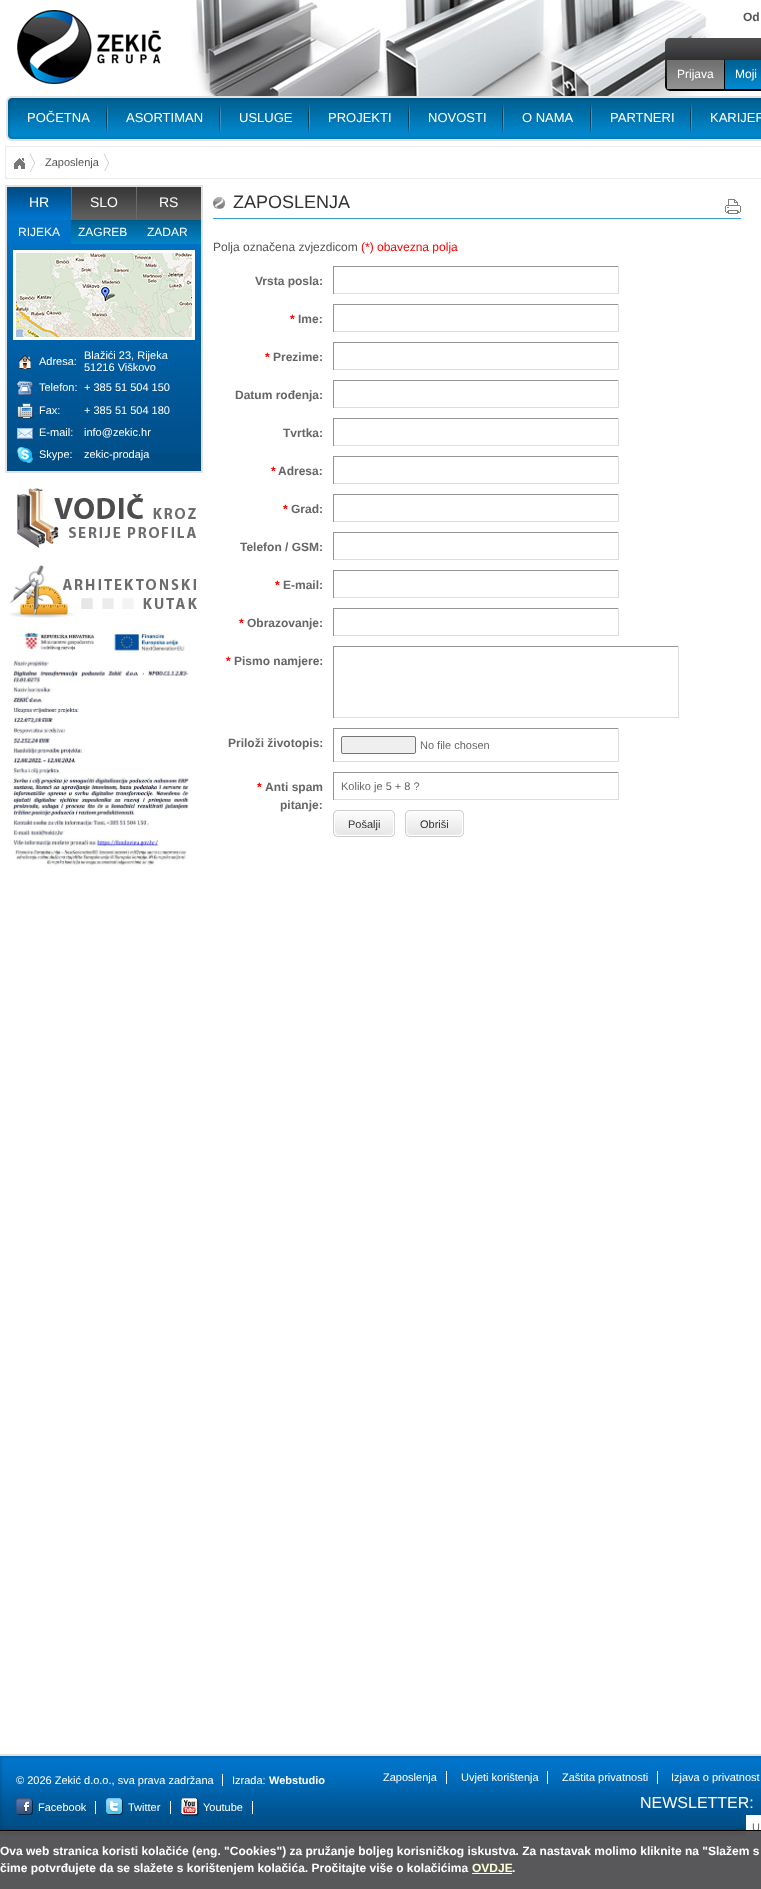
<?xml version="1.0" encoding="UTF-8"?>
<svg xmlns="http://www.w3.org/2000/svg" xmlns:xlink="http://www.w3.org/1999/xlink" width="761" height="1889">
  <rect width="100%" height="100%" fill="#ffffff" />
  <image x="17" y="10" width="144" height="74" xlink:href="image1.png" />
  <image x="191" y="0" width="525" height="96" xlink:href="image2.png" />
  <image x="665" y="38" width="96" height="53" xlink:href="image3.png" />
  <image x="667" y="60" width="57" height="29" xlink:href="image4.png" />
  <rect x="724" y="60" width="1" height="29" fill="#010101" />
  <image x="725" y="60" width="36" height="29" xlink:href="image5.png" />
  <image x="6" y="96" width="755" height="45" xlink:href="image6.png" />
  <image x="106" y="103" width="2" height="31" xlink:href="image7.png" />
  <image x="219" y="103" width="2" height="31" xlink:href="image7.png" />
  <image x="308" y="103" width="2" height="31" xlink:href="image7.png" />
  <image x="408" y="103" width="2" height="31" xlink:href="image7.png" />
  <image x="502" y="103" width="2" height="31" xlink:href="image7.png" />
  <image x="590" y="103" width="2" height="31" xlink:href="image7.png" />
  <image x="690" y="103" width="2" height="31" xlink:href="image7.png" />
  <rect x="5.5" y="146.5" width="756" height="32" fill="none" stroke="#e9e9e9" />
  <image x="29" y="153" width="6" height="19" xlink:href="image8.png" />
  <image x="14" y="158" width="11" height="11" xlink:href="image9.png" />
  <image x="103" y="153" width="6" height="18" xlink:href="image10.png" />
  <rect x="7" y="454" width="194" height="17" fill="#004d85" />
  <image x="7" y="244" width="194" height="210" xlink:href="image11.png" />
  <rect x="6" y="186" width="196" height="286" fill="none" stroke="#e2e2e2" stroke-width="2" />
  <image x="72" y="187" width="129" height="33" xlink:href="image12.png" />
  <rect x="71" y="187" width="1" height="33" fill="#6a6a6a" />
  <image x="7" y="187" width="64" height="33" xlink:href="image13.png" />
  <rect x="136" y="187" width="1" height="33" fill="#6a6a6a" />
  <image x="71" y="220" width="130" height="24" xlink:href="image14.png" />
  <rect x="7" y="220" width="64" height="24" fill="#0073c9" />
  <rect x="14.5" y="251.5" width="179" height="87" fill="none" stroke="#ffffff" stroke-width="3" />
  <image x="16" y="253" width="176" height="84" xlink:href="image15.png" />
  <image x="18" y="355" width="14" height="14" xlink:href="image16.png" />
  <image x="17" y="381" width="16" height="14" xlink:href="image17.png" />
  <image x="17" y="403" width="16" height="16" xlink:href="image18.png" />
  <image x="17" y="428" width="16" height="11" xlink:href="image19.png" />
  <image x="17" y="447" width="16" height="16" xlink:href="image20.png" />
  <image x="17" y="488" width="179" height="60" xlink:href="image21.png" />
  <image x="9" y="565" width="188" height="53" xlink:href="image22.png" />
  <image x="12" y="632" width="177" height="235" xlink:href="image23.png" />
  <image x="213" y="197" width="12" height="12" xlink:href="image24.png" />
  <rect x="213" y="218" width="528" height="1" fill="#37a0cf" />
  <image x="725" y="199" width="16" height="15" xlink:href="image25.png" />
  <rect x="333" y="266" width="286" height="1" fill="#949494" />
  <rect x="618" y="266" width="1" height="28" fill="#dddddd" />
  <rect x="333" y="293" width="286" height="1" fill="#dddddd" />
  <rect x="333" y="266" width="1" height="28" fill="#949494" />
  <rect x="333" y="304" width="286" height="1" fill="#949494" />
  <rect x="618" y="304" width="1" height="28" fill="#dddddd" />
  <rect x="333" y="331" width="286" height="1" fill="#dddddd" />
  <rect x="333" y="304" width="1" height="28" fill="#949494" />
  <rect x="333" y="342" width="286" height="1" fill="#949494" />
  <rect x="618" y="342" width="1" height="28" fill="#dddddd" />
  <rect x="333" y="369" width="286" height="1" fill="#dddddd" />
  <rect x="333" y="342" width="1" height="28" fill="#949494" />
  <rect x="333" y="380" width="286" height="1" fill="#949494" />
  <rect x="618" y="380" width="1" height="28" fill="#dddddd" />
  <rect x="333" y="407" width="286" height="1" fill="#dddddd" />
  <rect x="333" y="380" width="1" height="28" fill="#949494" />
  <rect x="333" y="418" width="286" height="1" fill="#949494" />
  <rect x="618" y="418" width="1" height="28" fill="#dddddd" />
  <rect x="333" y="445" width="286" height="1" fill="#dddddd" />
  <rect x="333" y="418" width="1" height="28" fill="#949494" />
  <rect x="333" y="456" width="286" height="1" fill="#949494" />
  <rect x="618" y="456" width="1" height="28" fill="#dddddd" />
  <rect x="333" y="483" width="286" height="1" fill="#dddddd" />
  <rect x="333" y="456" width="1" height="28" fill="#949494" />
  <rect x="333" y="494" width="286" height="1" fill="#949494" />
  <rect x="618" y="494" width="1" height="28" fill="#dddddd" />
  <rect x="333" y="521" width="286" height="1" fill="#dddddd" />
  <rect x="333" y="494" width="1" height="28" fill="#949494" />
  <rect x="333" y="532" width="286" height="1" fill="#949494" />
  <rect x="618" y="532" width="1" height="28" fill="#dddddd" />
  <rect x="333" y="559" width="286" height="1" fill="#dddddd" />
  <rect x="333" y="532" width="1" height="28" fill="#949494" />
  <rect x="333" y="570" width="286" height="1" fill="#949494" />
  <rect x="618" y="570" width="1" height="28" fill="#dddddd" />
  <rect x="333" y="597" width="286" height="1" fill="#dddddd" />
  <rect x="333" y="570" width="1" height="28" fill="#949494" />
  <rect x="333" y="608" width="286" height="1" fill="#949494" />
  <rect x="618" y="608" width="1" height="28" fill="#dddddd" />
  <rect x="333" y="635" width="286" height="1" fill="#dddddd" />
  <rect x="333" y="608" width="1" height="28" fill="#949494" />
  <rect x="333" y="646" width="346" height="1" fill="#949494" />
  <rect x="678" y="646" width="1" height="72" fill="#dddddd" />
  <rect x="333" y="717" width="346" height="1" fill="#dddddd" />
  <rect x="333" y="646" width="1" height="72" fill="#949494" />
  <rect x="333" y="728" width="286" height="1" fill="#949494" />
  <rect x="618" y="728" width="1" height="34" fill="#dddddd" />
  <rect x="333" y="761" width="286" height="1" fill="#dddddd" />
  <rect x="333" y="728" width="1" height="34" fill="#949494" />
  <rect x="341.5" y="736.5" width="74" height="17" rx="1.5" fill="#efefef" stroke="#767676" />
  <rect x="333" y="772" width="286" height="1" fill="#949494" />
  <rect x="618" y="772" width="1" height="28" fill="#dddddd" />
  <rect x="333" y="799" width="286" height="1" fill="#dddddd" />
  <rect x="333" y="772" width="1" height="28" fill="#949494" />
  <image x="333" y="810" width="58" height="27" xlink:href="image26.png" />
  <image x="391" y="810" width="4" height="27" xlink:href="image27.png" />
  <image x="405" y="810" width="55" height="27" xlink:href="image28.png" />
  <image x="460" y="810" width="4" height="27" xlink:href="image27.png" />
  <image x="0" y="1834" width="760" height="55" xlink:href="image33.png" />
  <image x="0" y="1754" width="761" height="83" xlink:href="image29.png" />
  <rect x="222" y="1774" width="1" height="12" fill="#ffffff" />
  <rect x="446" y="1771" width="1" height="13" fill="#ffffff" />
  <rect x="547" y="1771" width="1" height="13" fill="#ffffff" />
  <rect x="657" y="1771" width="1" height="13" fill="#ffffff" />
  <rect x="95" y="1801" width="1" height="13" fill="#ffffff" />
  <image x="16" y="1798" width="17" height="17" xlink:href="image30.png" />
  <rect x="170" y="1801" width="1" height="13" fill="#ffffff" />
  <image x="106" y="1798" width="17" height="17" xlink:href="image31.png" />
  <rect x="252" y="1801" width="1" height="13" fill="#ffffff" />
  <image x="181" y="1798" width="18" height="18" xlink:href="image32.png" />
  <rect x="746" y="1815" width="15" height="24" fill="#ffffff" />
  <text x="743" y="21" style="font-family: Liberation Sans; font-size: 12px; font-weight: bold; fill: #555555">Od</text>
  <text x="677" y="78" style="font-family: Liberation Sans; font-size: 12px; fill: #ffffff">Prijava</text>
  <text x="735" y="78" style="font-family: Liberation Sans; font-size: 12px; fill: #ffffff">Moji</text>
  <text x="27" y="122" style="font-family: Liberation Sans; font-size: 13px; fill: #ffffff">POČETNA</text>
  <text x="126" y="122" style="font-family: Liberation Sans; font-size: 13px; fill: #ffffff">ASORTIMAN</text>
  <text x="239" y="122" style="font-family: Liberation Sans; font-size: 13px; fill: #ffffff">USLUGE</text>
  <text x="328" y="122" style="font-family: Liberation Sans; font-size: 13px; fill: #ffffff">PROJEKTI</text>
  <text x="428" y="122" style="font-family: Liberation Sans; font-size: 13px; fill: #ffffff">NOVOSTI</text>
  <text x="522" y="122" style="font-family: Liberation Sans; font-size: 13px; fill: #ffffff">O NAMA</text>
  <text x="610" y="122" style="font-family: Liberation Sans; font-size: 13px; fill: #ffffff">PARTNERI</text>
  <text x="710" y="122" style="font-family: Liberation Sans; font-size: 13px; fill: #ffffff">KARIJER</text>
  <text x="45" y="166" style="font-family: Liberation Sans; font-size: 11px; fill: #555555">Zaposlenja</text>
  <text x="29" y="207" style="font-family: Liberation Sans; font-size: 14px; fill: #ffffff">HR</text>
  <text x="90" y="207" style="font-family: Liberation Sans; font-size: 14px; fill: #ffffff">SLO</text>
  <text x="159" y="207" style="font-family: Liberation Sans; font-size: 14px; fill: #ffffff">RS</text>
  <text x="18" y="236" style="font-family: Liberation Sans; font-size: 12px; fill: #ffffff">RIJEKA</text>
  <text x="78" y="236" style="font-family: Liberation Sans; font-size: 12px; fill: #ffffff">ZAGREB</text>
  <text x="147" y="236" style="font-family: Liberation Sans; font-size: 12px; fill: #ffffff">ZADAR</text>
  <text x="39" y="365" style="font-family: Liberation Sans; font-size: 11px; fill: #ffffff">Adresa:</text>
  <text x="84" y="359" style="font-family: Liberation Sans; font-size: 11px; fill: #ffffff">Blažići 23, Rijeka</text>
  <text x="84" y="371" style="font-family: Liberation Sans; font-size: 11px; fill: #ffffff">51216 Viškovo</text>
  <text x="39" y="391" style="font-family: Liberation Sans; font-size: 11px; fill: #ffffff">Telefon:</text>
  <text x="84" y="391" style="font-family: Liberation Sans; font-size: 11px; fill: #ffffff">+ 385 51 504 150</text>
  <text x="39" y="414" style="font-family: Liberation Sans; font-size: 11px; fill: #ffffff">Fax:</text>
  <text x="84" y="414" style="font-family: Liberation Sans; font-size: 11px; fill: #ffffff">+ 385 51 504 180</text>
  <text x="39" y="436" style="font-family: Liberation Sans; font-size: 11px; fill: #ffffff">E-mail:</text>
  <text x="84" y="436" style="font-family: Liberation Sans; font-size: 11px; fill: #ffffff">info@zekic.hr</text>
  <text x="39" y="458" style="font-family: Liberation Sans; font-size: 11px; fill: #ffffff">Skype:</text>
  <text x="84" y="458" style="font-family: Liberation Sans; font-size: 11px; fill: #ffffff">zekic-prodaja</text>
  <text x="233" y="208" style="font-family: Liberation Sans; font-size: 18px; fill: #333333">ZAPOSLENJA</text>
  <text x="213" y="251" style="font-family: Liberation Sans; font-size: 12px; fill: #555555">Polja označena zvjezdicom</text>
  <text x="361" y="251" style="font-family: Liberation Sans; font-size: 12px; fill: #ff0000">(*) obavezna polja</text>
  <text x="255" y="285" style="font-family: Liberation Sans; font-size: 12px; font-weight: bold; fill: #666666">Vrsta posla:</text>
  <text x="290" y="323" style="font-family: Liberation Sans; font-size: 12px; font-weight: bold; fill: #ff0000">*</text>
  <text x="298" y="323" style="font-family: Liberation Sans; font-size: 12px; font-weight: bold; fill: #666666">Ime:</text>
  <text x="265" y="361" style="font-family: Liberation Sans; font-size: 12px; font-weight: bold; fill: #ff0000">*</text>
  <text x="273" y="361" style="font-family: Liberation Sans; font-size: 12px; font-weight: bold; fill: #666666">Prezime:</text>
  <text x="235" y="399" style="font-family: Liberation Sans; font-size: 12px; font-weight: bold; fill: #666666">Datum rođenja:</text>
  <text x="283" y="437" style="font-family: Liberation Sans; font-size: 12px; font-weight: bold; fill: #666666">Tvrtka:</text>
  <text x="271" y="475" style="font-family: Liberation Sans; font-size: 12px; font-weight: bold; fill: #ff0000">*</text>
  <text x="278" y="475" style="font-family: Liberation Sans; font-size: 12px; font-weight: bold; fill: #666666">Adresa:</text>
  <text x="283" y="513" style="font-family: Liberation Sans; font-size: 12px; font-weight: bold; fill: #ff0000">*</text>
  <text x="291" y="513" style="font-family: Liberation Sans; font-size: 12px; font-weight: bold; fill: #666666">Grad:</text>
  <text x="240" y="551" style="font-family: Liberation Sans; font-size: 12px; font-weight: bold; fill: #666666">Telefon / GSM:</text>
  <text x="275" y="589" style="font-family: Liberation Sans; font-size: 12px; font-weight: bold; fill: #ff0000">*</text>
  <text x="283" y="589" style="font-family: Liberation Sans; font-size: 12px; font-weight: bold; fill: #666666">E-mail:</text>
  <text x="239" y="627" style="font-family: Liberation Sans; font-size: 12px; font-weight: bold; fill: #ff0000">*</text>
  <text x="247" y="627" style="font-family: Liberation Sans; font-size: 12px; font-weight: bold; fill: #666666">Obrazovanje:</text>
  <text x="226" y="665" style="font-family: Liberation Sans; font-size: 12px; font-weight: bold; fill: #ff0000">*</text>
  <text x="234" y="665" style="font-family: Liberation Sans; font-size: 12px; font-weight: bold; fill: #666666">Pismo namjere:</text>
  <text x="228" y="747" style="font-family: Liberation Sans; font-size: 12px; font-weight: bold; fill: #666666">Priloži životopis:</text>
  <text x="420" y="749" style="font-family: Liberation Sans; font-size: 11px; fill: #666666">No file chosen</text>
  <text x="257" y="791" style="font-family: Liberation Sans; font-size: 12px; font-weight: bold; fill: #ff0000">*</text>
  <text x="265" y="791" style="font-family: Liberation Sans; font-size: 12px; font-weight: bold; fill: #666666">Anti spam</text>
  <text x="280" y="809" style="font-family: Liberation Sans; font-size: 12px; font-weight: bold; fill: #666666">pitanje:</text>
  <text x="341" y="790" style="font-family: Liberation Sans; font-size: 11px; fill: #666666">Koliko je 5 + 8 ?</text>
  <text x="348" y="828" style="font-family: Liberation Sans; font-size: 11px; fill: #333333">Pošalji</text>
  <text x="420" y="828" style="font-family: Liberation Sans; font-size: 11px; fill: #333333">Obriši</text>
  <text x="16" y="1784" style="font-family: Liberation Sans; font-size: 11px; fill: #ffffff">© 2026 Zekić d.o.o., sva prava zadržana</text>
  <text x="232" y="1784" style="font-family: Liberation Sans; font-size: 11px; fill: #ffffff">Izrada:</text>
  <text x="269" y="1784" style="font-family: Liberation Sans; font-size: 11px; font-weight: bold; fill: #ffffff">Webstudio</text>
  <text x="383" y="1781" style="font-family: Liberation Sans; font-size: 11px; fill: #ffffff">Zaposlenja</text>
  <text x="461" y="1781" style="font-family: Liberation Sans; font-size: 11px; fill: #ffffff">Uvjeti korištenja</text>
  <text x="562" y="1781" style="font-family: Liberation Sans; font-size: 11px; fill: #ffffff">Zaštita privatnosti</text>
  <text x="671" y="1781" style="font-family: Liberation Sans; font-size: 11px; fill: #ffffff">Izjava o privatnost</text>
  <text x="38" y="1811" style="font-family: Liberation Sans; font-size: 11px; fill: #ffffff">Facebook</text>
  <text x="128" y="1811" style="font-family: Liberation Sans; font-size: 11px; fill: #ffffff">Twitter</text>
  <text x="203" y="1811" style="font-family: Liberation Sans; font-size: 11px; fill: #ffffff">Youtube</text>
  <text x="640" y="1808" style="font-family: Liberation Sans; font-size: 16px; fill: #ffffff">NEWSLETTER:</text>
  <text x="752" y="1831" style="font-family: Liberation Sans; font-size: 11px; fill: #666666">U</text>
  <rect y="1831" width="761" height="58" fill="#464648" fill-opacity="0.9" />
  <rect y="1830" width="761" height="1" fill="#000000" />
  <text x="0" y="1855" style="font-family: Liberation Sans; font-size: 12px; font-weight: bold; fill: #ffffff">Ova web stranica koristi kolačiće (eng. "Cookies") za pružanje boljeg korisničkog iskustva. Za nastavak molimo kliknite na "Slažem s</text>
  <text x="0" y="1872" style="font-family: Liberation Sans; font-size: 12px; font-weight: bold; fill: #ffffff">čime potvrđujete da se slažete s korištenjem kolačića. Pročitajte više o kolačićima</text>
  <text x="472" y="1872" style="font-family: Liberation Sans; font-size: 12px; font-weight: bold; fill: #fdffd6">OVDJE</text>
  <rect x="472" y="1873" width="40" height="1" fill="#fdffd6" />
  <text x="512" y="1872" style="font-family: Liberation Sans; font-size: 12px; font-weight: bold; fill: #ffffff">.</text>
</svg>
